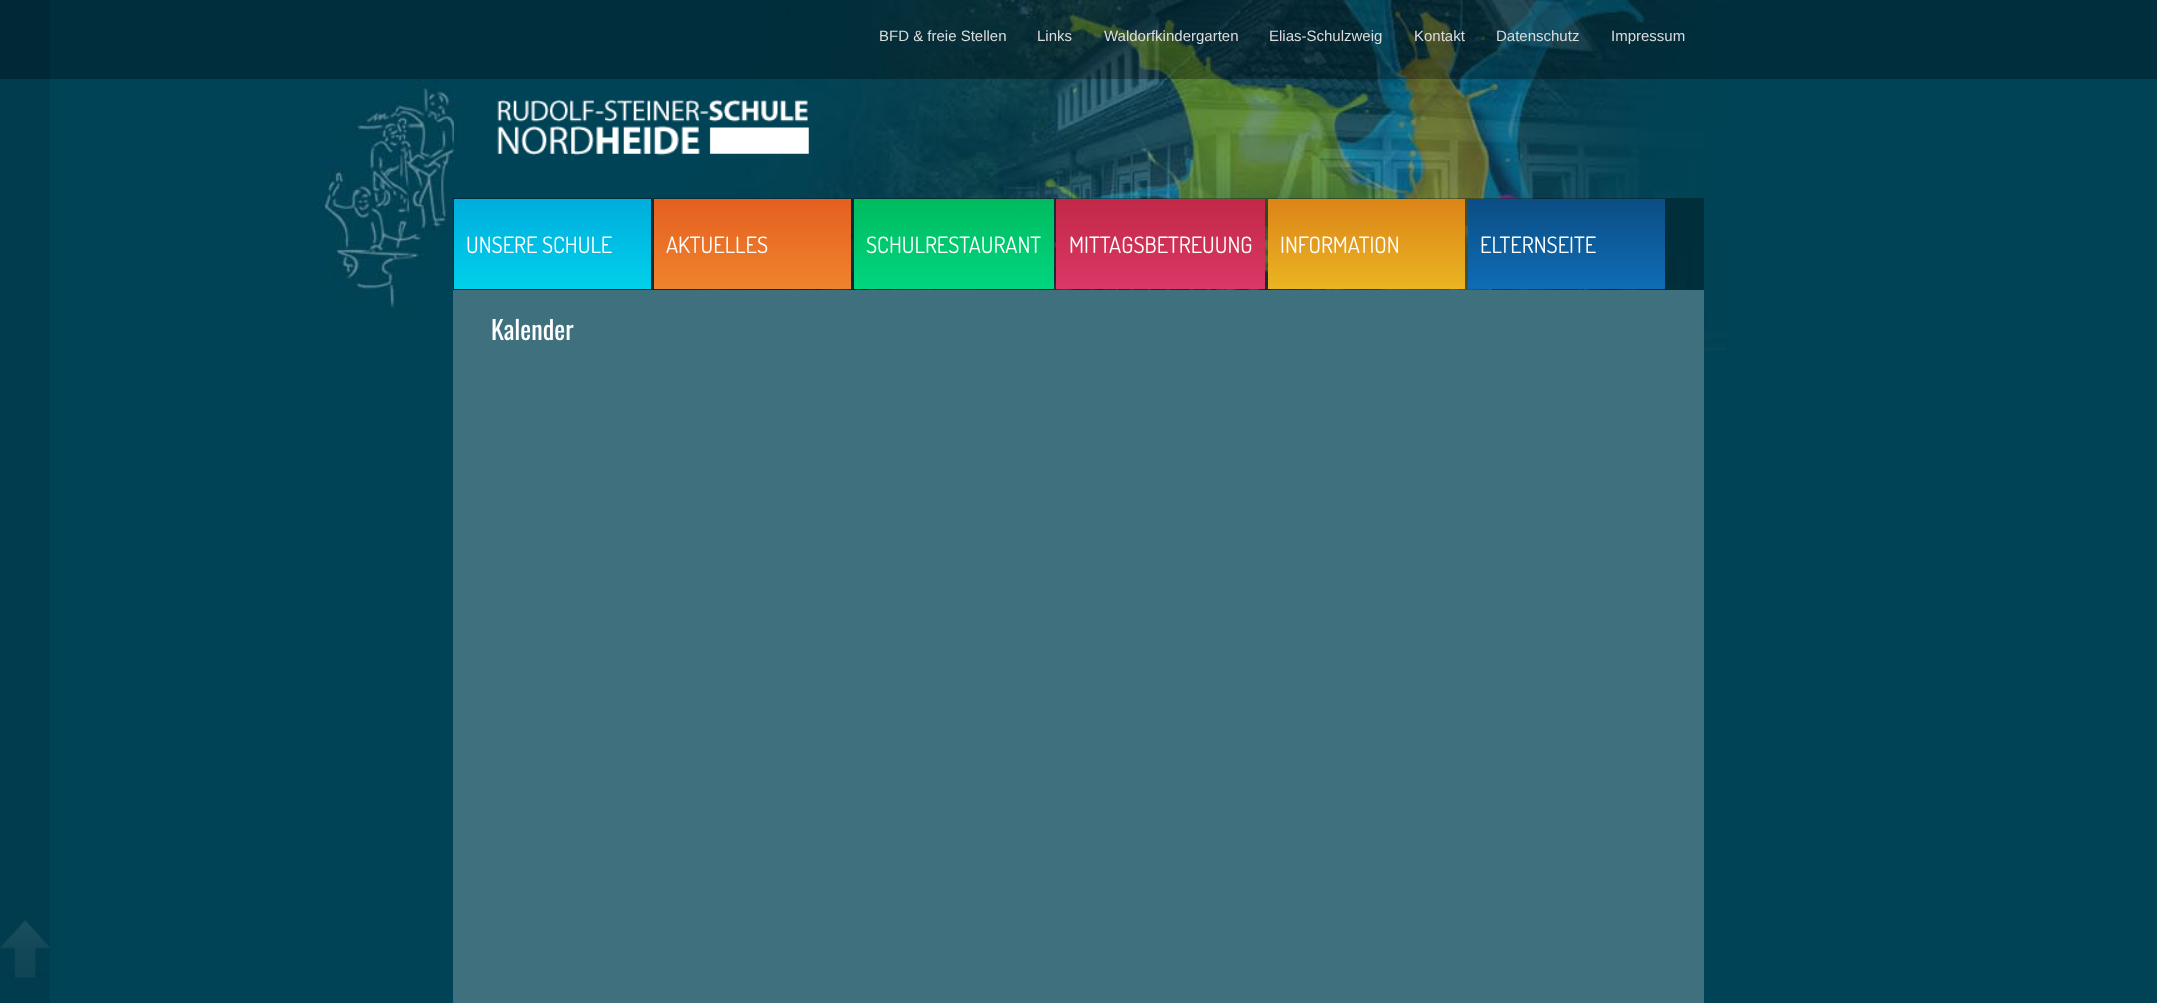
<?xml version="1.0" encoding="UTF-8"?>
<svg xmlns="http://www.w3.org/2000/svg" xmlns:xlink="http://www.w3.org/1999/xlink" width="2157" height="1003">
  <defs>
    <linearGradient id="g1" gradientUnits="userSpaceOnUse" x1="553" y1="199" x2="553" y2="289"><stop offset="0" stop-color="#00addd" /><stop offset="1" stop-color="#00d0eb" /></linearGradient>
    <linearGradient id="g2" gradientUnits="userSpaceOnUse" x1="753" y1="199" x2="753" y2="289"><stop offset="0" stop-color="#e55f20" /><stop offset="1" stop-color="#ef842d" /></linearGradient>
    <linearGradient id="g3" gradientUnits="userSpaceOnUse" x1="954" y1="199" x2="954" y2="289"><stop offset="0" stop-color="#00bb5e" /><stop offset="1" stop-color="#00d680" /></linearGradient>
    <linearGradient id="g4" gradientUnits="userSpaceOnUse" x1="1161" y1="199" x2="1161" y2="289"><stop offset="0" stop-color="#c22847" /><stop offset="1" stop-color="#da3866" /></linearGradient>
    <linearGradient id="g5" gradientUnits="userSpaceOnUse" x1="1366" y1="199" x2="1366" y2="289"><stop offset="0" stop-color="#dc8418" /><stop offset="1" stop-color="#eab522" /></linearGradient>
    <linearGradient id="g6" gradientUnits="userSpaceOnUse" x1="1566" y1="199" x2="1566" y2="289"><stop offset="0" stop-color="#0b4d84" /><stop offset="1" stop-color="#0f6db5" /></linearGradient>
  </defs>
  <rect width="100%" height="100%" fill="#014356" />
  <image x="318" y="0" width="1408" height="352" xlink:href="image1.png" />
  <rect width="2157" height="79" fill="#000000" fill-opacity="0.3" />
  <rect width="50" height="1003" fill="#000000" fill-opacity="0.1" />
  <image x="0" y="920" width="50" height="58" xlink:href="image2.png" />
  <image x="497" y="99" width="312" height="57" xlink:href="image3.png" />
  <rect x="453" y="198" width="1251" height="92" fill="#000000" fill-opacity="0.3" />
  <rect x="454" y="199" width="197" height="90" fill="url(#g1)" />
  <rect x="654" y="199" width="197" height="90" fill="url(#g2)" />
  <rect x="854" y="199" width="200" height="90" fill="url(#g3)" />
  <rect x="1056" y="199" width="209" height="90" fill="url(#g4)" />
  <rect x="1268" y="199" width="197" height="90" fill="url(#g5)" />
  <rect x="1468" y="199" width="197" height="90" fill="url(#g6)" />
  <rect x="453" y="290" width="1251" height="713" fill="#3e707e" />
  <text x="879" y="41" style="font-family: Liberation Sans; font-size: 15px; fill: #dcdcdc">BFD &amp; freie Stellen</text>
  <text x="1037" y="41" style="font-family: Liberation Sans; font-size: 15px; fill: #dcdcdc">Links</text>
  <text x="1104" y="41" style="font-family: Liberation Sans; font-size: 15px; fill: #dcdcdc">Waldorfkindergarten</text>
  <text x="1269" y="41" style="font-family: Liberation Sans; font-size: 15px; fill: #dcdcdc">Elias-Schulzweig</text>
  <text x="1414" y="41" style="font-family: Liberation Sans; font-size: 15px; fill: #dcdcdc">Kontakt</text>
  <text x="1496" y="41" style="font-family: Liberation Sans; font-size: 15px; fill: #dcdcdc">Datenschutz</text>
  <text x="1611" y="41" style="font-family: Liberation Sans; font-size: 15px; fill: #dcdcdc">Impressum</text>
  <text x="466" y="253" style="font-family: Dosis; font-size: 22.5px; fill: #ffffff">UNSERE SCHULE</text>
  <text x="666" y="253" style="font-family: Dosis; font-size: 22.5px; fill: #ffffff">AKTUELLES</text>
  <text x="866" y="253" style="font-family: Dosis; font-size: 22.5px; fill: #ffffff">SCHULRESTAURANT</text>
  <text x="1069" y="253" style="font-family: Dosis; font-size: 22.5px; fill: #ffffff">MITTAGSBETREUUNG</text>
  <text x="1280" y="253" style="font-family: Dosis; font-size: 22.5px; fill: #ffffff">INFORMATION</text>
  <text x="1480" y="253" style="font-family: Dosis; font-size: 22.5px; fill: #ffffff">ELTERNSEITE</text>
  <text x="491" y="340" style="font-family: Oswald; font-size: 26px; fill: #ffffff">Kalender</text>
</svg>
